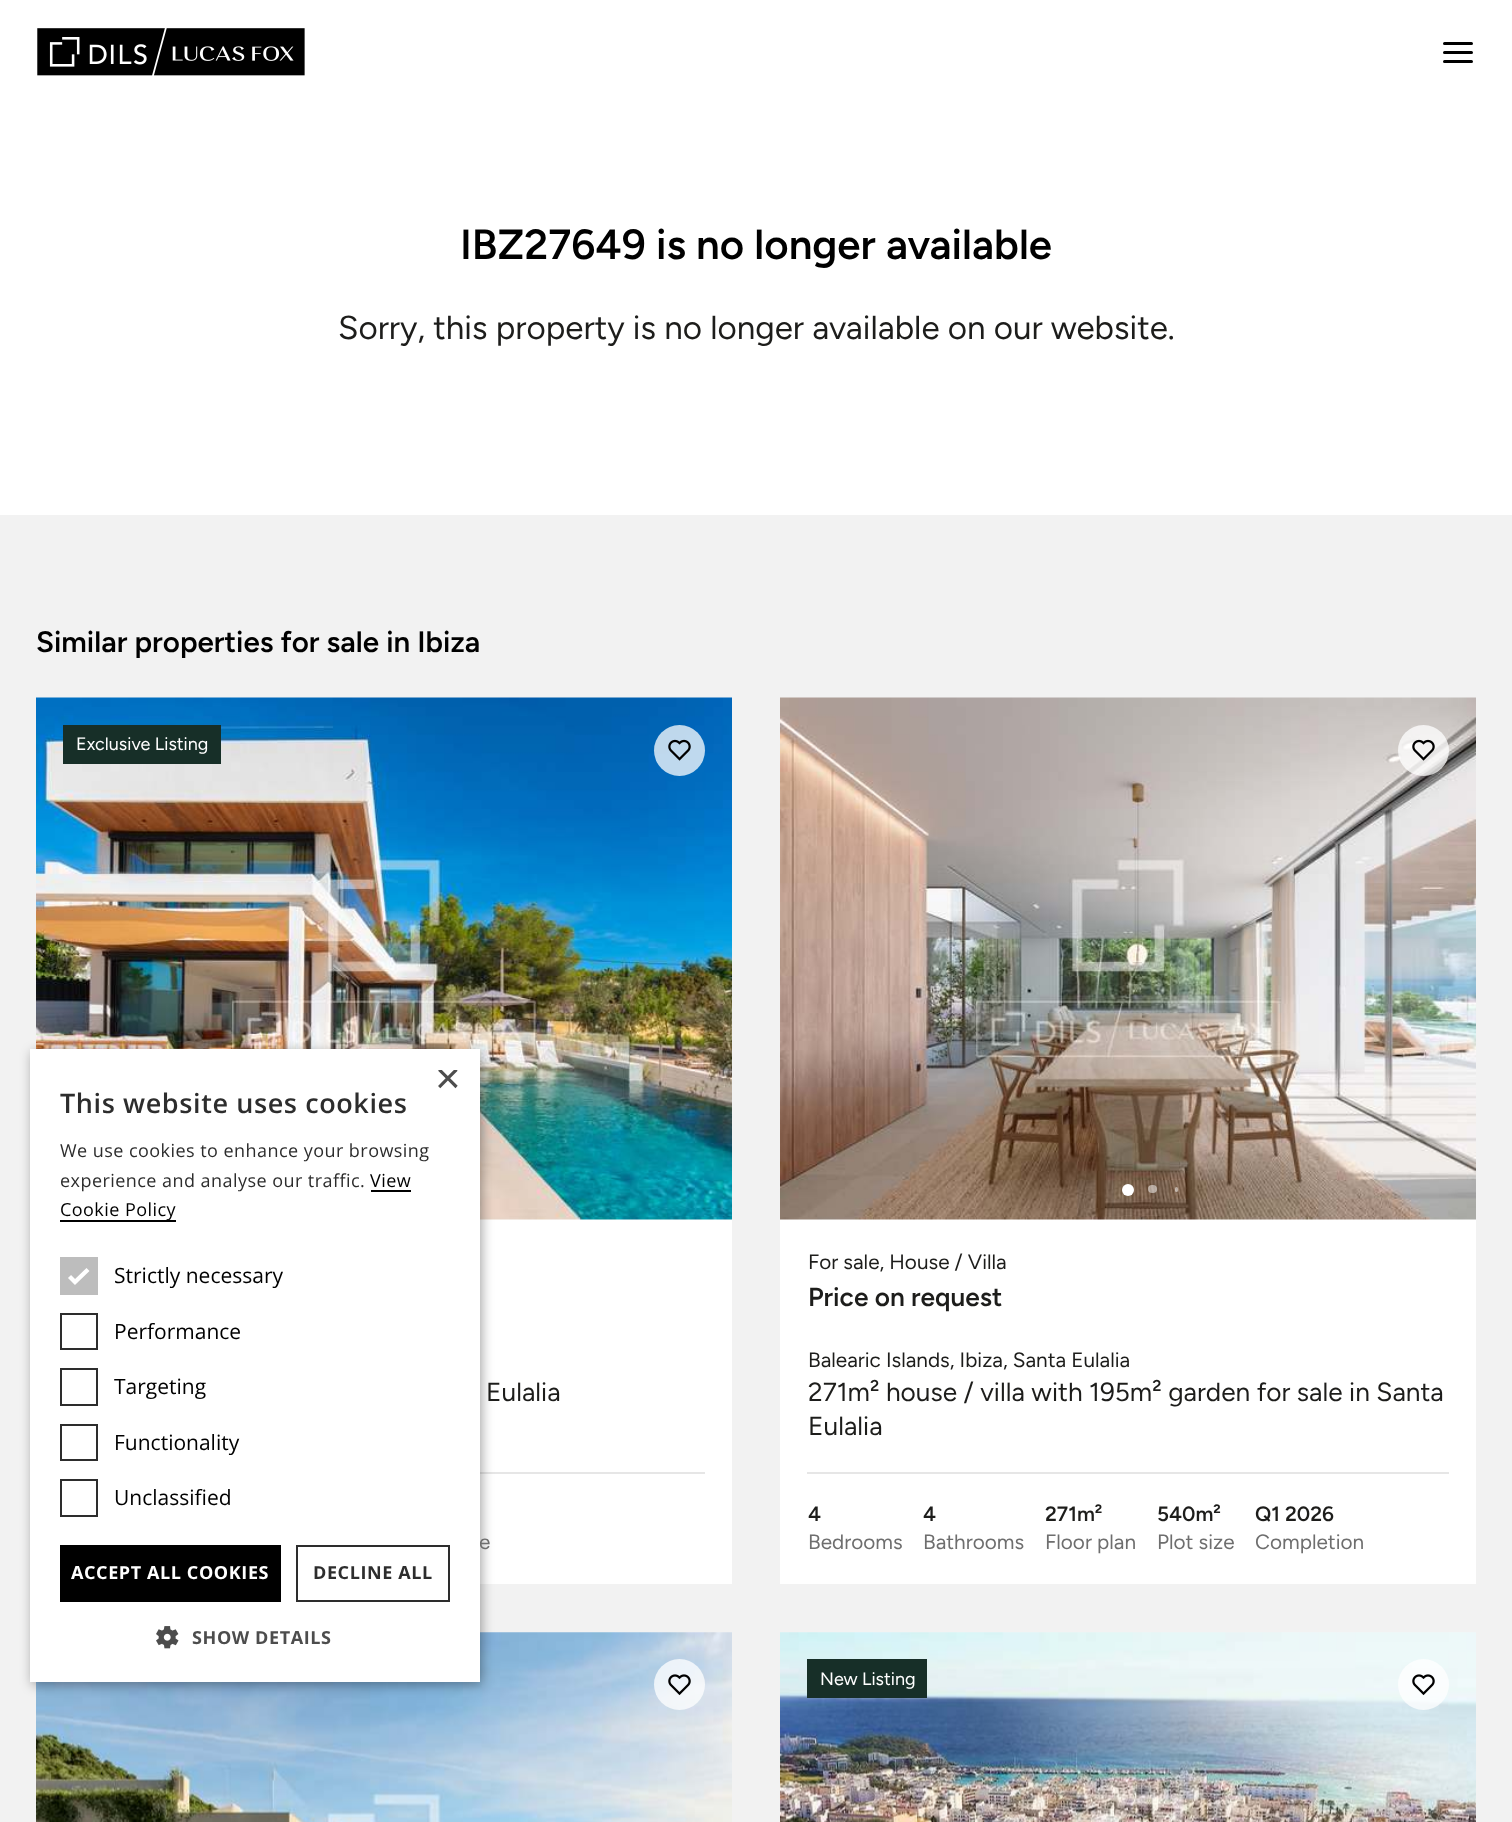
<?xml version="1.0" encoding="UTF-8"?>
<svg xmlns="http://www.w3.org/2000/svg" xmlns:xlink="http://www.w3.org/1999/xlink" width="1512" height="1822">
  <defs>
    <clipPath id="clip1"><rect x="435" y="1070" width="23" height="22" /></clipPath>
  </defs>
  <rect width="100%" height="100%" fill="#ffffff" />
  <image x="37" y="28" width="268" height="48" xlink:href="image1.png" />
  <path d="M 1444.5 52.5 h 27 m -27 -9 h 27 m -27 18 h 27" fill="none" stroke="#000000" stroke-width="3" stroke-linecap="round" stroke-linejoin="round" />
  <rect y="515" width="1512" height="1307" fill="#f2f2f2" />
  <rect x="480" y="1219" width="252" height="365" fill="#ffffff" />
  <image x="36" y="697" width="696" height="523" xlink:href="image2.png" />
  <rect x="63" y="725" width="158" height="39" fill="#172f28" />
  <rect x="480" y="1472" width="225" height="2" fill="#e6e6e6" />
  <circle cx="679.5" cy="750.5" r="25.5" fill="#ffffff" fill-opacity="0.75" />
  <image x="668" y="739" width="23" height="22" xlink:href="image3.png" />
  <rect x="780" y="1219" width="696" height="365" fill="#ffffff" />
  <image x="780" y="697" width="696" height="523" xlink:href="image5.png" />
  <circle cx="1423.5" cy="750.5" r="25.5" fill="#ffffff" fill-opacity="0.75" />
  <image x="1412" y="739" width="23" height="22" xlink:href="image4.png" />
  <circle cx="1128" cy="1190" r="6" fill="#ffffff" />
  <rect x="1148" y="1185" width="9" height="8" rx="4" fill="#ffffff" fill-opacity="0.5" />
  <rect x="1175" y="1187" width="3" height="5" rx="1.5" fill="#ffffff" fill-opacity="0.5" />
  <rect x="807" y="1472" width="642" height="2" fill="#e6e6e6" />
  <image x="36" y="1632" width="696" height="190" xlink:href="image6.png" />
  <circle cx="679.5" cy="1684.5" r="25.5" fill="#ffffff" fill-opacity="0.75" />
  <image x="668" y="1674" width="23" height="22" xlink:href="image7.png" />
  <image x="780" y="1632" width="696" height="190" xlink:href="image8.png" />
  <rect x="807" y="1659" width="120" height="39" fill="#172f28" />
  <circle cx="1423.5" cy="1684.5" r="25.5" fill="#ffffff" fill-opacity="0.75" />
  <image x="1412" y="1674" width="23" height="22" xlink:href="image9.png" />
  <rect x="32" y="1052" width="450" height="633" fill="#000000" fill-opacity="0.35" filter="blur(6px)" />
  <text x="460" y="259" style="font-family: Figtree; font-size: 42px; font-weight: 600; fill: #000000">IBZ27649 is no longer available</text>
  <text x="338" y="339" style="font-family: Figtree; font-size: 33.2px; font-weight: 300; fill: #1d1d1b">Sorry, this property is no longer available on our website.</text>
  <text x="36" y="652" style="font-family: Figtree; font-size: 29.5px; font-weight: 600; fill: #000000">Similar properties for sale in Ibiza</text>
  <text x="76" y="750" style="font-family: Figtree; font-size: 18px; font-weight: 300; fill: #ffffff">Exclusive Listing</text>
  <text x="486" y="1401" style="font-family: Figtree; font-size: 26.25px; font-weight: 300; fill: #1d1d1b">Eulalia</text>
  <text x="479" y="1549" style="font-family: Figtree; font-size: 20.75px; font-weight: 300; fill: #6e6e6e">e</text>
  <text x="808" y="1269" style="font-family: Figtree; font-size: 20.75px; font-weight: 300; fill: #1d1d1b">For sale, House / Villa</text>
  <text x="808" y="1306" style="font-family: Figtree; font-size: 26.25px; font-weight: 600; fill: #1d1d1b">Price on request</text>
  <text x="808" y="1367" style="font-family: Figtree; font-size: 20.75px; font-weight: 300; fill: #1d1d1b">Balearic Islands, Ibiza, Santa Eulalia</text>
  <text x="808" y="1401" style="font-family: Figtree; font-size: 26.25px; font-weight: 300; fill: #1d1d1b">271m² house / villa with 195m² garden for sale in Santa</text>
  <text x="808" y="1435" style="font-family: Figtree; font-size: 26.25px; font-weight: 300; fill: #1d1d1b">Eulalia</text>
  <text x="808" y="1521" style="font-family: Figtree; font-size: 20.75px; font-weight: 600; fill: #1d1d1b">4</text>
  <text x="808" y="1549" style="font-family: Figtree; font-size: 20.75px; font-weight: 300; fill: #6e6e6e">Bedrooms</text>
  <text x="923" y="1521" style="font-family: Figtree; font-size: 20.75px; font-weight: 600; fill: #1d1d1b">4</text>
  <text x="923" y="1549" style="font-family: Figtree; font-size: 20.75px; font-weight: 300; fill: #6e6e6e">Bathrooms</text>
  <text x="1045" y="1521" style="font-family: Figtree; font-size: 20.75px; font-weight: 600; fill: #1d1d1b">271m²</text>
  <text x="1045" y="1549" style="font-family: Figtree; font-size: 20.75px; font-weight: 300; fill: #6e6e6e">Floor plan</text>
  <text x="1157" y="1521" style="font-family: Figtree; font-size: 20.75px; font-weight: 600; fill: #1d1d1b">540m²</text>
  <text x="1157" y="1549" style="font-family: Figtree; font-size: 20.75px; font-weight: 300; fill: #6e6e6e">Plot size</text>
  <text x="1255" y="1521" style="font-family: Figtree; font-size: 20.75px; font-weight: 600; fill: #1d1d1b">Q1 2026</text>
  <text x="1255" y="1549" style="font-family: Figtree; font-size: 20.75px; font-weight: 300; fill: #6e6e6e">Completion</text>
  <text x="820" y="1685" style="font-family: Figtree; font-size: 18px; font-weight: 300; fill: #ffffff">New Listing</text>
  <rect x="30" y="1049" width="450" height="633" fill="#ffffff" />
  <g clip-path="url(#clip1)">
    <text x="435" y="1093" style="font-family: Liberation Sans; font-size: 44px; fill: #4d4d4d">×</text>
  </g>
  <text x="60" y="1113" style="font-family: Open Sans; font-size: 27px; font-weight: 600; letter-spacing: 0.6px; fill: #2d2d2d">This website uses cookies</text>
  <text x="60" y="1157" style="font-family: Open Sans; font-size: 18px; letter-spacing: 0.45px; fill: #2d2d2d">We use cookies to enhance your browsing</text>
  <text x="60" y="1187" style="font-family: Open Sans; font-size: 18px; letter-spacing: 0.45px; fill: #2d2d2d">experience and analyse our traffic.</text>
  <text x="370" y="1187" style="font-family: Open Sans; font-size: 18px; letter-spacing: 0.45px; fill: #000000">View</text>
  <rect x="371" y="1190" width="40" height="2" fill="#000000" />
  <rect x="60" y="1220" width="116" height="2" fill="#000000" />
  <text x="60" y="1216" style="font-family: Open Sans; font-size: 18px; letter-spacing: 0.45px; fill: #000000">Cookie Policy</text>
  <rect x="60" y="1257" width="38" height="38" fill="#bdbdbd" />
  <path d="M 69.5 1276.5 l 5.5 5.5 l 13 -12.5" fill="none" stroke="#ffffff" stroke-width="4.3" />
  <text x="114" y="1283" style="font-family: Open Sans; font-size: 21px; fill: #000000">Strictly necessary</text>
  <rect x="61" y="1314" width="36" height="35" fill="none" stroke="#2d2d2d" stroke-width="2" />
  <text x="114" y="1339" style="font-family: Open Sans; font-size: 21px; fill: #000000">Performance</text>
  <rect x="61" y="1369" width="36" height="36" fill="none" stroke="#2d2d2d" stroke-width="2" />
  <text x="114" y="1394" style="font-family: Open Sans; font-size: 21px; fill: #000000">Targeting</text>
  <rect x="61" y="1425" width="36" height="35" fill="none" stroke="#2d2d2d" stroke-width="2" />
  <text x="114" y="1450" style="font-family: Open Sans; font-size: 21px; fill: #000000">Functionality</text>
  <rect x="61" y="1480" width="36" height="36" fill="none" stroke="#2d2d2d" stroke-width="2" />
  <text x="114" y="1505" style="font-family: Open Sans; font-size: 21px; fill: #000000">Unclassified</text>
  <rect x="60" y="1545" width="221" height="57" fill="#000000" />
  <text x="71" y="1579" style="font-family: Open Sans; font-size: 18px; font-weight: bold; letter-spacing: 0.6px; fill: #ffffff">ACCEPT ALL COOKIES</text>
  <rect x="297" y="1546" width="152" height="55" fill="none" stroke="#2d2d2d" stroke-width="2" />
  <text x="313" y="1579" style="font-family: Open Sans; font-size: 18px; font-weight: bold; letter-spacing: 0.6px; fill: #2d2d2d">DECLINE ALL</text>
  <image x="156" y="1626" width="23" height="23" xlink:href="image10.png" />
  <text x="192" y="1644" style="font-family: Open Sans; font-size: 18px; font-weight: bold; letter-spacing: 0.6px; fill: #4d4d4d">SHOW DETAILS</text>
</svg>
